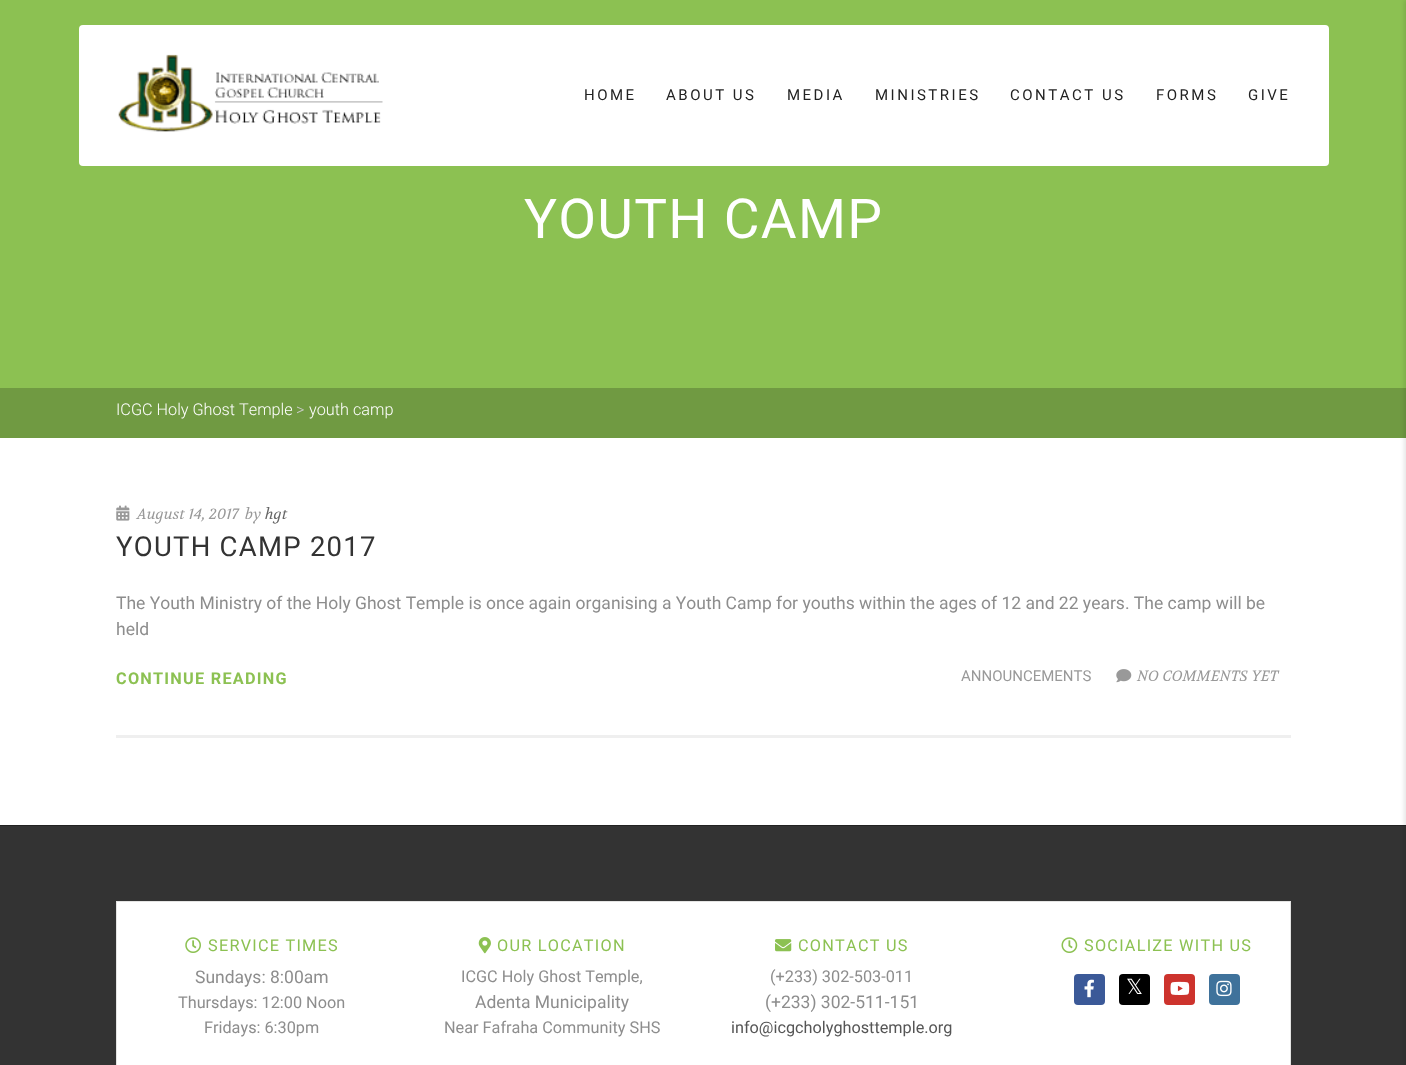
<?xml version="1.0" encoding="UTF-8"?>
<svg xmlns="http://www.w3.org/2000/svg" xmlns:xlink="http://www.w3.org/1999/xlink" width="1406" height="1065">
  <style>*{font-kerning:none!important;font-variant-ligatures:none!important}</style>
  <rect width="100%" height="100%" fill="#ffffff" />
  <rect width="1406" height="388" fill="#8cc152" />
  <rect x="79" y="25" width="1250" height="141" rx="4" fill="#ffffff" />
  <image x="118" y="54" width="265" height="78" xlink:href="image1.png" />
  <rect y="388" width="1406" height="50" fill="#709a42" />
  <rect x="116" y="735" width="1175" height="3" fill="#efefef" />
  <image x="116" y="505" width="14" height="16" xlink:href="image2.png" />
  <image x="1116" y="669" width="16" height="14" xlink:href="image3.png" />
  <rect y="826" width="1406" height="239" fill="#333333" />
  <rect y="825" width="1406" height="1" fill="#222222" />
  <rect x="116.5" y="901.5" width="1174" height="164" fill="#ffffff" stroke="#e4e4e3" />
  <image x="185" y="937" width="16" height="16" xlink:href="image4.png" />
  <image x="478" y="937" width="13" height="17" xlink:href="image5.png" />
  <image x="775" y="939" width="17" height="13" xlink:href="image6.png" />
  <image x="1061" y="937" width="17" height="16" xlink:href="image7.png" />
  <rect x="1074" y="974" width="31" height="31" rx="4" fill="#3b5998" />
  <image x="1084" y="979" width="10" height="19" xlink:href="image8.png" />
  <rect x="1119" y="974" width="31" height="31" rx="4" fill="#000000" />
  <rect x="1164" y="974" width="31" height="31" rx="4" fill="#cd332d" />
  <image x="1170" y="981" width="20" height="14" xlink:href="image9.png" />
  <rect x="1209" y="974" width="31" height="31" rx="4" fill="#3f729b" />
  <image x="1216" y="980" width="16" height="17" xlink:href="image10.png" />
  <rect x="1404" width="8" height="1065" fill="#000000" fill-opacity="0.1" filter="blur(2px)" />
  <text x="584" y="100" style="font-family: Roboto; font-size: 15px; letter-spacing: 2.5px; fill: #222222">HOME</text>
  <text x="666" y="100" style="font-family: Roboto; font-size: 15px; letter-spacing: 2.5px; fill: #222222">ABOUT US</text>
  <text x="787" y="100" style="font-family: Roboto; font-size: 15px; letter-spacing: 2.5px; fill: #222222">MEDIA</text>
  <text x="875" y="100" style="font-family: Roboto; font-size: 15px; letter-spacing: 2.5px; fill: #222222">MINISTRIES</text>
  <text x="1010" y="100" style="font-family: Roboto; font-size: 15px; letter-spacing: 2.5px; fill: #222222">CONTACT US</text>
  <text x="1156" y="100" style="font-family: Roboto; font-size: 15px; letter-spacing: 2.5px; fill: #222222">FORMS</text>
  <text x="1248" y="100" style="font-family: Roboto; font-size: 15px; letter-spacing: 2.5px; fill: #222222">GIVE</text>
  <text x="524" y="238" style="font-family: Roboto; font-size: 55px; letter-spacing: 1.25px; fill: #ffffff">YOUTH CAMP</text>
  <text x="116" y="415" style="font-family: Roboto; font-size: 16.25px; font-weight: 300; fill: #ffffff">ICGC Holy Ghost Temple</text>
  <text x="296" y="415" style="font-family: Roboto; font-size: 16.25px; font-weight: 300; fill: #cccccc">&gt;</text>
  <text x="309" y="415" style="font-family: Roboto; font-size: 16.25px; font-weight: 300; fill: #ffffff">youth camp</text>
  <text x="137" y="519" style="font-family: Volkhov; font-size: 15px; font-style: italic; fill: #999999">August 14, 2017</text>
  <text x="245" y="519" style="font-family: Volkhov; font-size: 15px; font-style: italic; fill: #999999">by</text>
  <text x="265" y="519" style="font-family: Volkhov; font-size: 15px; font-style: italic; fill: #666666">hgt</text>
  <text x="116" y="556" style="font-family: Roboto; font-size: 27.5px; letter-spacing: 1.25px; fill: #333333">YOUTH CAMP 2017</text>
  <text x="116" y="609" style="font-family: Roboto; font-size: 17.5px; fill: #8d8d8d">The Youth Ministry of the Holy Ghost Temple is once again organising a Youth Camp for youths within the ages of 12 and 22 years. The camp will be</text>
  <text x="116" y="635" style="font-family: Roboto; font-size: 17.5px; fill: #8d8d8d">held</text>
  <text x="116" y="684" style="font-family: Roboto; font-size: 16.25px; font-weight: bold; letter-spacing: 1.25px; fill: #8cc152">CONTINUE READING</text>
  <text x="961" y="681" style="font-family: Roboto; font-size: 15px; fill: #999999">ANNOUNCEMENTS</text>
  <text x="1137" y="681" style="font-family: Volkhov; font-size: 15px; font-style: italic; fill: #999999">NO COMMENTS YET</text>
  <text x="208" y="951" style="font-family: Roboto; font-size: 16.25px; letter-spacing: 1.25px; fill: #8cc152">SERVICE TIMES</text>
  <text x="195" y="983" style="font-family: Roboto; font-size: 17.5px; fill: #8d8d8d">Sundays: 8:00am</text>
  <text x="178" y="1008" style="font-family: Roboto; font-size: 16.25px; fill: #8d8d8d">Thursdays: 12:00 Noon</text>
  <text x="204" y="1033" style="font-family: Roboto; font-size: 16.25px; fill: #8d8d8d">Fridays: 6:30pm</text>
  <text x="497" y="951" style="font-family: Roboto; font-size: 16.25px; letter-spacing: 1.25px; fill: #8cc152">OUR LOCATION</text>
  <text x="461" y="982" style="font-family: Roboto; font-size: 16.25px; fill: #8d8d8d">ICGC Holy Ghost Temple,</text>
  <text x="475" y="1008" style="font-family: Roboto; font-size: 17.5px; fill: #8d8d8d">Adenta Municipality</text>
  <text x="444" y="1033" style="font-family: Roboto; font-size: 16.25px; fill: #8d8d8d">Near Fafraha Community SHS</text>
  <text x="798" y="951" style="font-family: Roboto; font-size: 16.25px; letter-spacing: 1.25px; fill: #8cc152">CONTACT US</text>
  <text x="770" y="982" style="font-family: Roboto; font-size: 16.25px; fill: #8d8d8d">(+233) 302-503-011</text>
  <text x="765" y="1008" style="font-family: Roboto; font-size: 17.5px; fill: #8d8d8d">(+233) 302-511-151</text>
  <text x="731" y="1033" style="font-family: Roboto; font-size: 16.25px; fill: #555555">info@icgcholyghosttemple.org</text>
  <text x="1084" y="951" style="font-family: Roboto; font-size: 16.25px; letter-spacing: 1.25px; fill: #8cc152">SOCIALIZE WITH US</text>
  <text x="1126" y="994" style="font-family: DejaVu Sans; font-size: 21px; fill: #ffffff">𝕏</text>
</svg>
